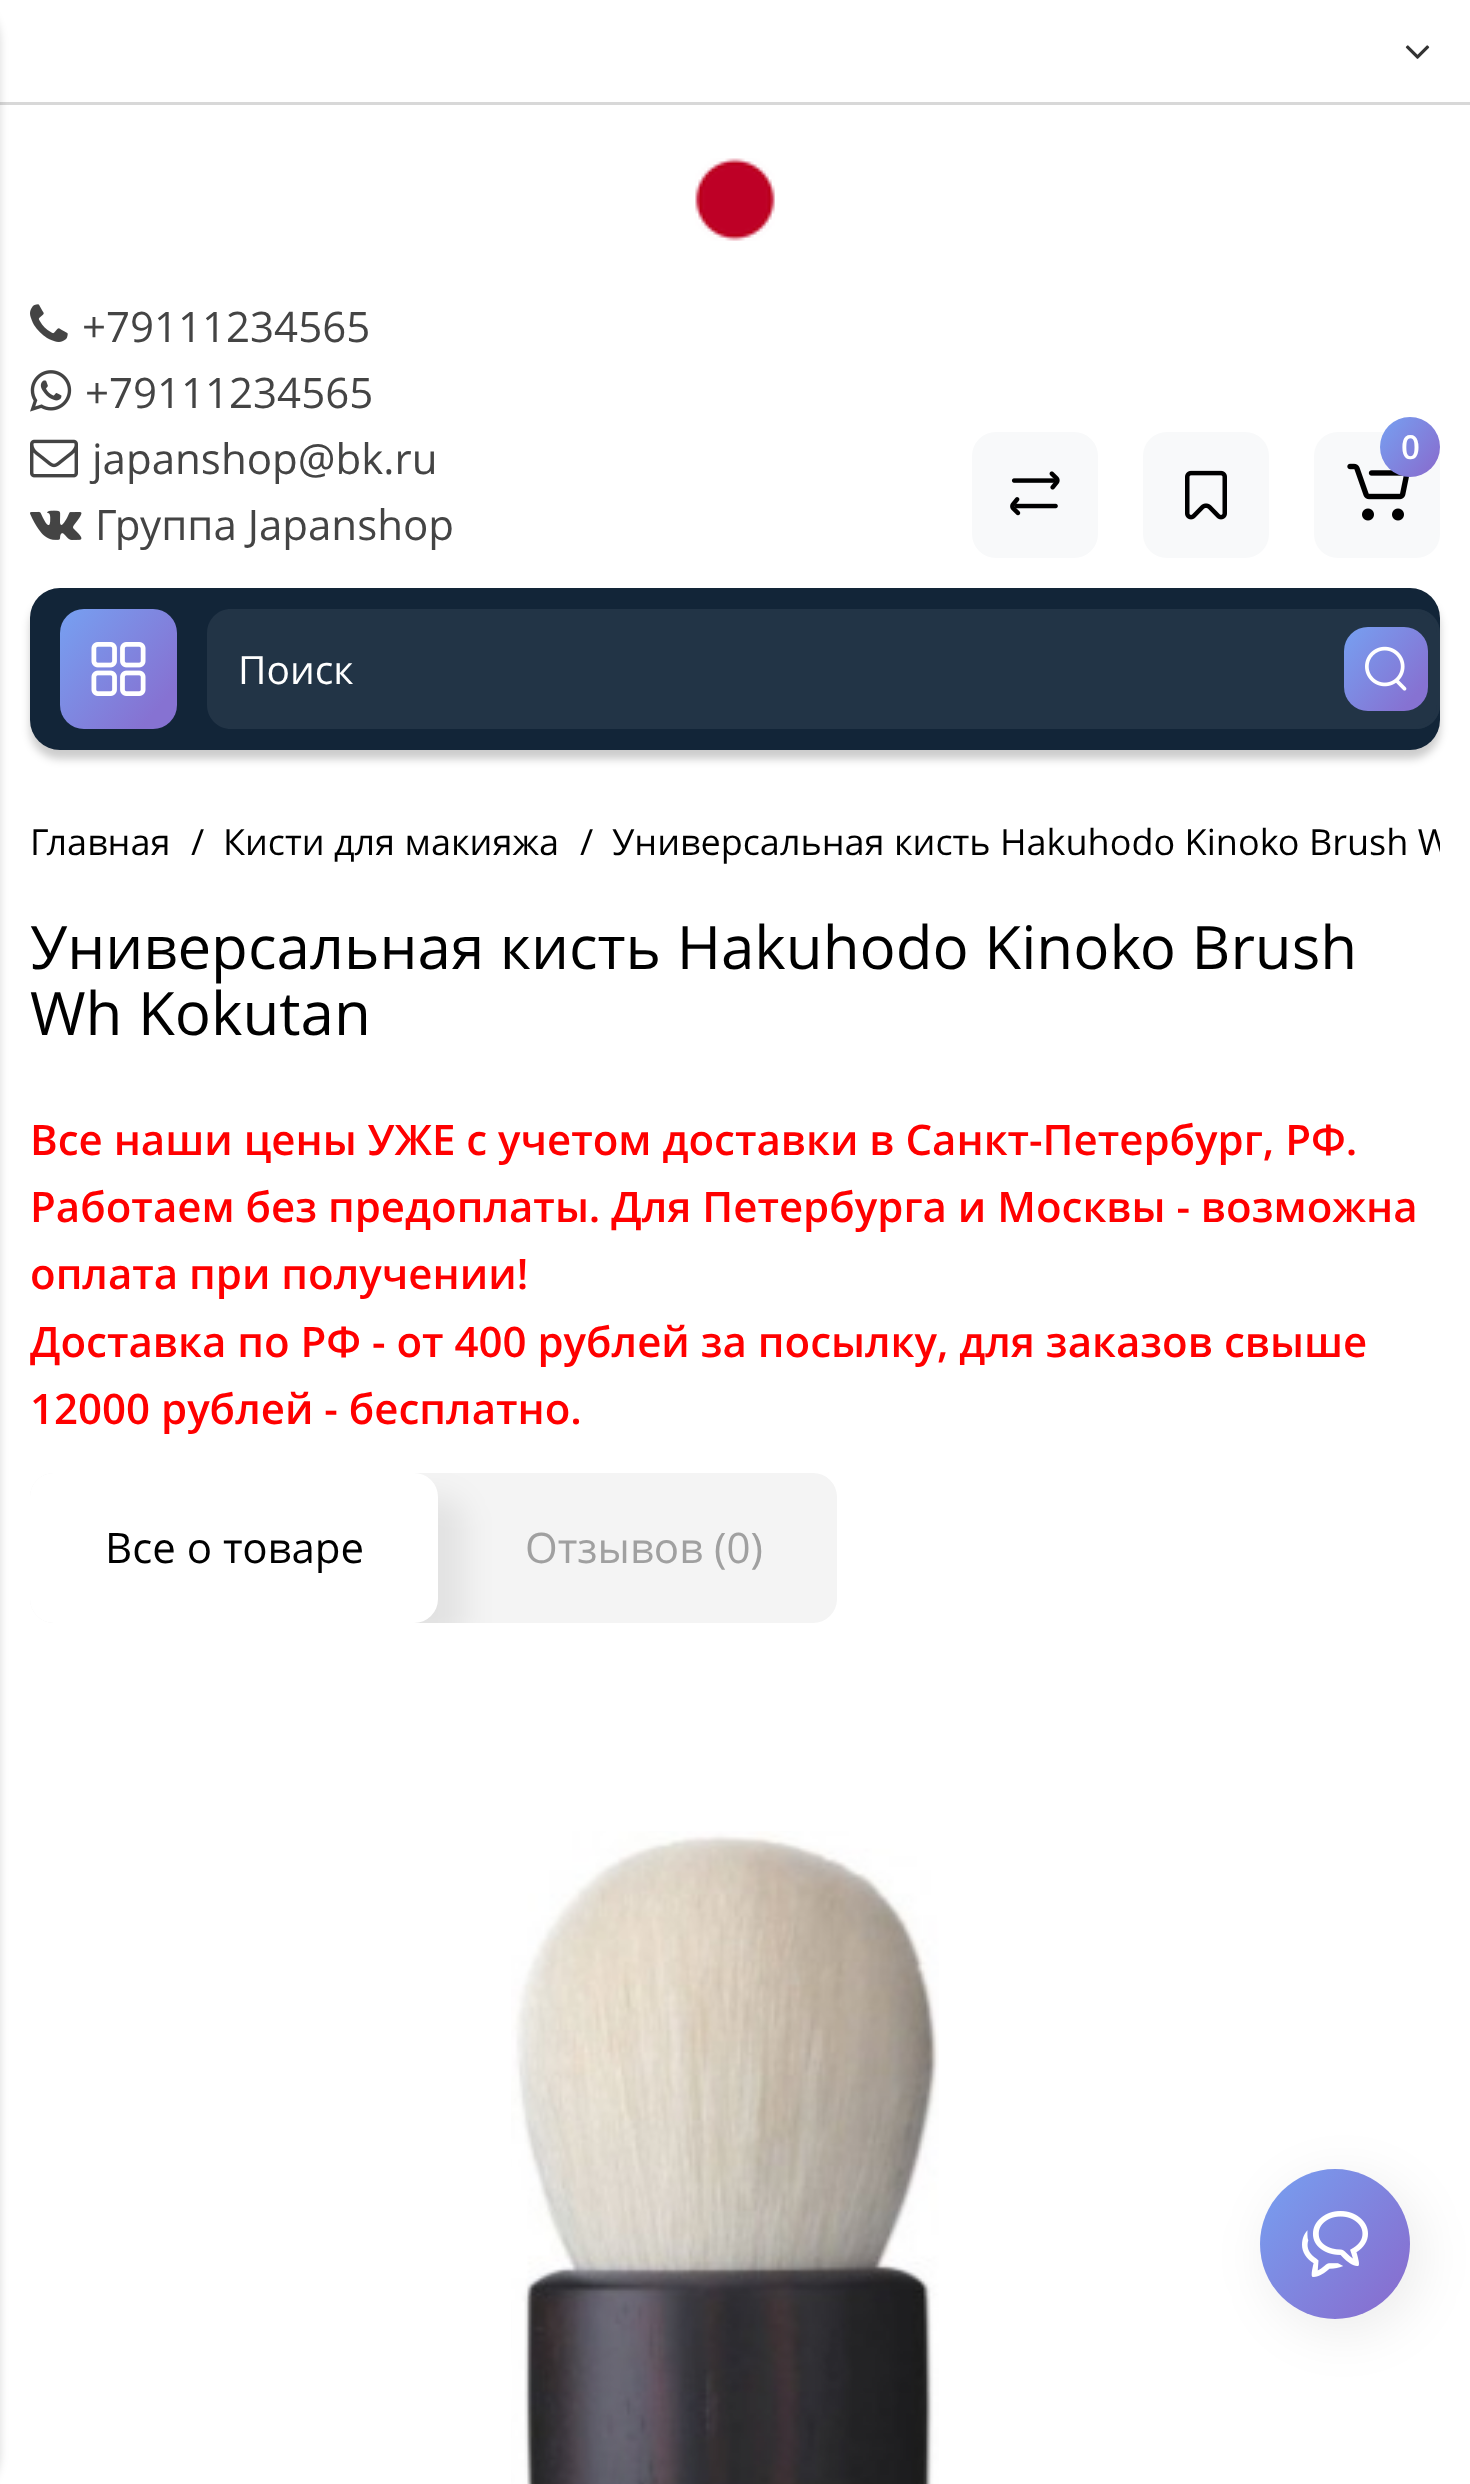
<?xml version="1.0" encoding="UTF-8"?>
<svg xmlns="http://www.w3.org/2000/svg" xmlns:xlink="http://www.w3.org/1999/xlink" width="1470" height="2484">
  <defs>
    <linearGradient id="g1" gradientUnits="userSpaceOnUse" x1="1366" y1="411" x2="1443" y2="474"><stop offset="0" stop-color="#73aaf8" /><stop offset="0.86" stop-color="#8672d2" /></linearGradient>
    <linearGradient id="g2" gradientUnits="userSpaceOnUse" x1="31" y1="598" x2="183" y2="721"><stop offset="0" stop-color="#73aaf8" /><stop offset="0.86" stop-color="#8672d2" /></linearGradient>
    <linearGradient id="g3" gradientUnits="userSpaceOnUse" x1="1324" y1="618" x2="1432" y2="706"><stop offset="0" stop-color="#73aaf8" /><stop offset="0.86" stop-color="#8672d2" /></linearGradient>
    <clipPath id="clip1"><rect x="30" y="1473" width="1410" height="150" rx="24" /></clipPath>
    <linearGradient id="g4" gradientUnits="userSpaceOnUse" x1="1224" y1="2154" x2="1417" y2="2311"><stop offset="0" stop-color="#73aaf8" /><stop offset="0.86" stop-color="#8672d2" /></linearGradient>
    <clipPath id="clip2"><rect x="30" y="810" width="1410" height="117" rx="12" /></clipPath>
  </defs>
  <rect width="100%" height="100%" fill="#ffffff" />
  <rect y="102" width="1470" height="3" fill="#d8d8d8" />
  <image x="1405" y="45" width="25" height="14" xlink:href="image1.png" />
  <image x="695" y="158" width="80" height="83" xlink:href="image2.png" />
  <image x="30" y="304" width="38" height="38" xlink:href="image3.png" />
  <image x="30" y="370" width="42" height="42" xlink:href="image4.png" />
  <image x="30" y="439" width="48" height="39" xlink:href="image5.png" />
  <image x="30" y="510" width="52" height="30" xlink:href="image6.png" />
  <rect x="972" y="432" width="126" height="126" rx="24" fill="#f8f9fa" />
  <image x="1010" y="471" width="50" height="45" xlink:href="image7.png" />
  <rect x="1143" y="432" width="126" height="126" rx="24" fill="#f8f9fa" />
  <image x="1185" y="470" width="42" height="50" xlink:href="image8.png" />
  <rect x="1314" y="432" width="126" height="126" rx="24" fill="#f8f9fa" />
  <image x="1347" y="463" width="62" height="58" xlink:href="image9.png" />
  <circle cx="1410" cy="447" r="30" fill="url(#g1)" />
  <rect x="30" y="597" width="1410" height="162" rx="30" fill="#000000" fill-opacity="0.2" filter="blur(4.5px)" />
  <rect x="30" y="588" width="1410" height="162" rx="30" fill="#122538" />
  <rect x="-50" y="6" width="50" height="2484" rx="36" fill="#000000" fill-opacity="0.15" filter="blur(4.5px)" />
  <rect x="60" y="609" width="117" height="120" rx="24" fill="url(#g2)" />
  <image x="91" y="642" width="55" height="54" xlink:href="image10.png" />
  <path d="M 231 609 h 1098 v 120 h -1098 c -13.5 0 -24 -10.5 -24 -24 v -72 c 0 -13.5 10.5 -24 24 -24 z" fill="#223446" />
  <path d="M 1329 609 h 87 c 13.5 0 24 10.5 24 24 v 72 c 0 13.5 -10.5 24 -24 24 h -87 z" fill="#223446" />
  <path d="M 1329 609 h 87 c 13 0 24 11 24 24 v 72 c 0 13 -11 24 -24 24 h -87 z m 0 3 h 87 c 12 0 21 9 21 21 v 72 c 0 12 -9 21 -21 21 h -87 z" fill="#223446" fill-rule="evenodd" />
  <rect x="1344" y="627" width="84" height="84" rx="24" fill="url(#g3)" />
  <image x="1365" y="646" width="42" height="45" xlink:href="image11.png" />
  <rect x="30" y="1473" width="807" height="150" rx="24" fill="#f4f4f4" />
  <g clip-path="url(#clip1)">
    <rect x="57" y="1497" width="408" height="150" rx="24" fill="#000000" fill-opacity="0.07" filter="blur(15px)" />
  </g>
  <rect x="30" y="1473" width="408" height="150" rx="24" fill="#ffffff" />
  <image x="511" y="1831" width="428" height="653" xlink:href="image12.png" />
  <rect x="1269" y="2181" width="150" height="150" rx="75" fill="#000000" fill-opacity="0.08" filter="blur(27px)" />
  <circle cx="1335" cy="2244" r="75" fill="url(#g4)" />
  <image x="1302" y="2211" width="66" height="66" xlink:href="image13.png" />
  <text x="82" y="342" style="font-family: Open Sans; font-size: 42px; fill: #444444">+79111234565</text>
  <text x="85" y="408" style="font-family: Open Sans; font-size: 42px; fill: #444444">+79111234565</text>
  <text x="92" y="474" style="font-family: Open Sans; font-size: 42px; fill: #444444">japanshop@bk.ru</text>
  <text x="95" y="540" style="font-family: Open Sans; font-size: 42px; fill: #444444">Группа Japanshop</text>
  <text x="1401" y="459" style="font-family: Open Sans; font-size: 33px; font-weight: 600; fill: #ffffff">0</text>
  <text x="238" y="684" style="font-family: Open Sans; font-size: 39px; fill: #ffffff">Поиск</text>
  <text x="30" y="855" style="font-family: Open Sans; font-size: 36px; fill: #000000">Главная</text>
  <text x="191" y="855" style="font-family: Open Sans; font-size: 36px; fill: #000000">/</text>
  <text x="223" y="855" style="font-family: Open Sans; font-size: 36px; fill: #000000">Кисти для макияжа</text>
  <text x="580" y="855" style="font-family: Open Sans; font-size: 36px; fill: #000000">/</text>
  <g clip-path="url(#clip2)">
    <text x="612" y="855" style="font-family: Open Sans; font-size: 36px; fill: #000000">Универсальная кисть Hakuhodo Kinoko Brush W</text>
  </g>
  <text x="30" y="969" style="font-family: Open Sans; font-size: 60px; fill: #000000">Универсальная кисть Hakuhodo Kinoko Brush</text>
  <text x="30" y="1035" style="font-family: Open Sans; font-size: 60px; fill: #000000">Wh Kokutan</text>
  <text x="30" y="1155" style="font-family: Open Sans; font-size: 42px; font-weight: 600; fill: #ff0000">Все наши цены УЖЕ с учетом доставки в Санкт-Петербург, РФ.</text>
  <text x="30" y="1222" style="font-family: Open Sans; font-size: 42px; font-weight: 600; fill: #ff0000">Работаем без предоплаты. Для Петербурга и Москвы - возможна</text>
  <text x="30" y="1289" style="font-family: Open Sans; font-size: 42px; font-weight: 600; fill: #ff0000">оплата при получении!</text>
  <text x="30" y="1357" style="font-family: Open Sans; font-size: 42px; font-weight: 600; fill: #ff0000">Доставка по РФ - от 400 рублей за посылку, для заказов свыше</text>
  <text x="30" y="1424" style="font-family: Open Sans; font-size: 42px; font-weight: 600; fill: #ff0000">12000 рублей - бесплатно.</text>
  <text x="525" y="1563" style="font-family: Open Sans; font-size: 42px; fill: #a0a0a0">Отзывов (0)</text>
  <text x="105" y="1563" style="font-family: Open Sans; font-size: 42px; fill: #000000">Все о товаре</text>
</svg>
